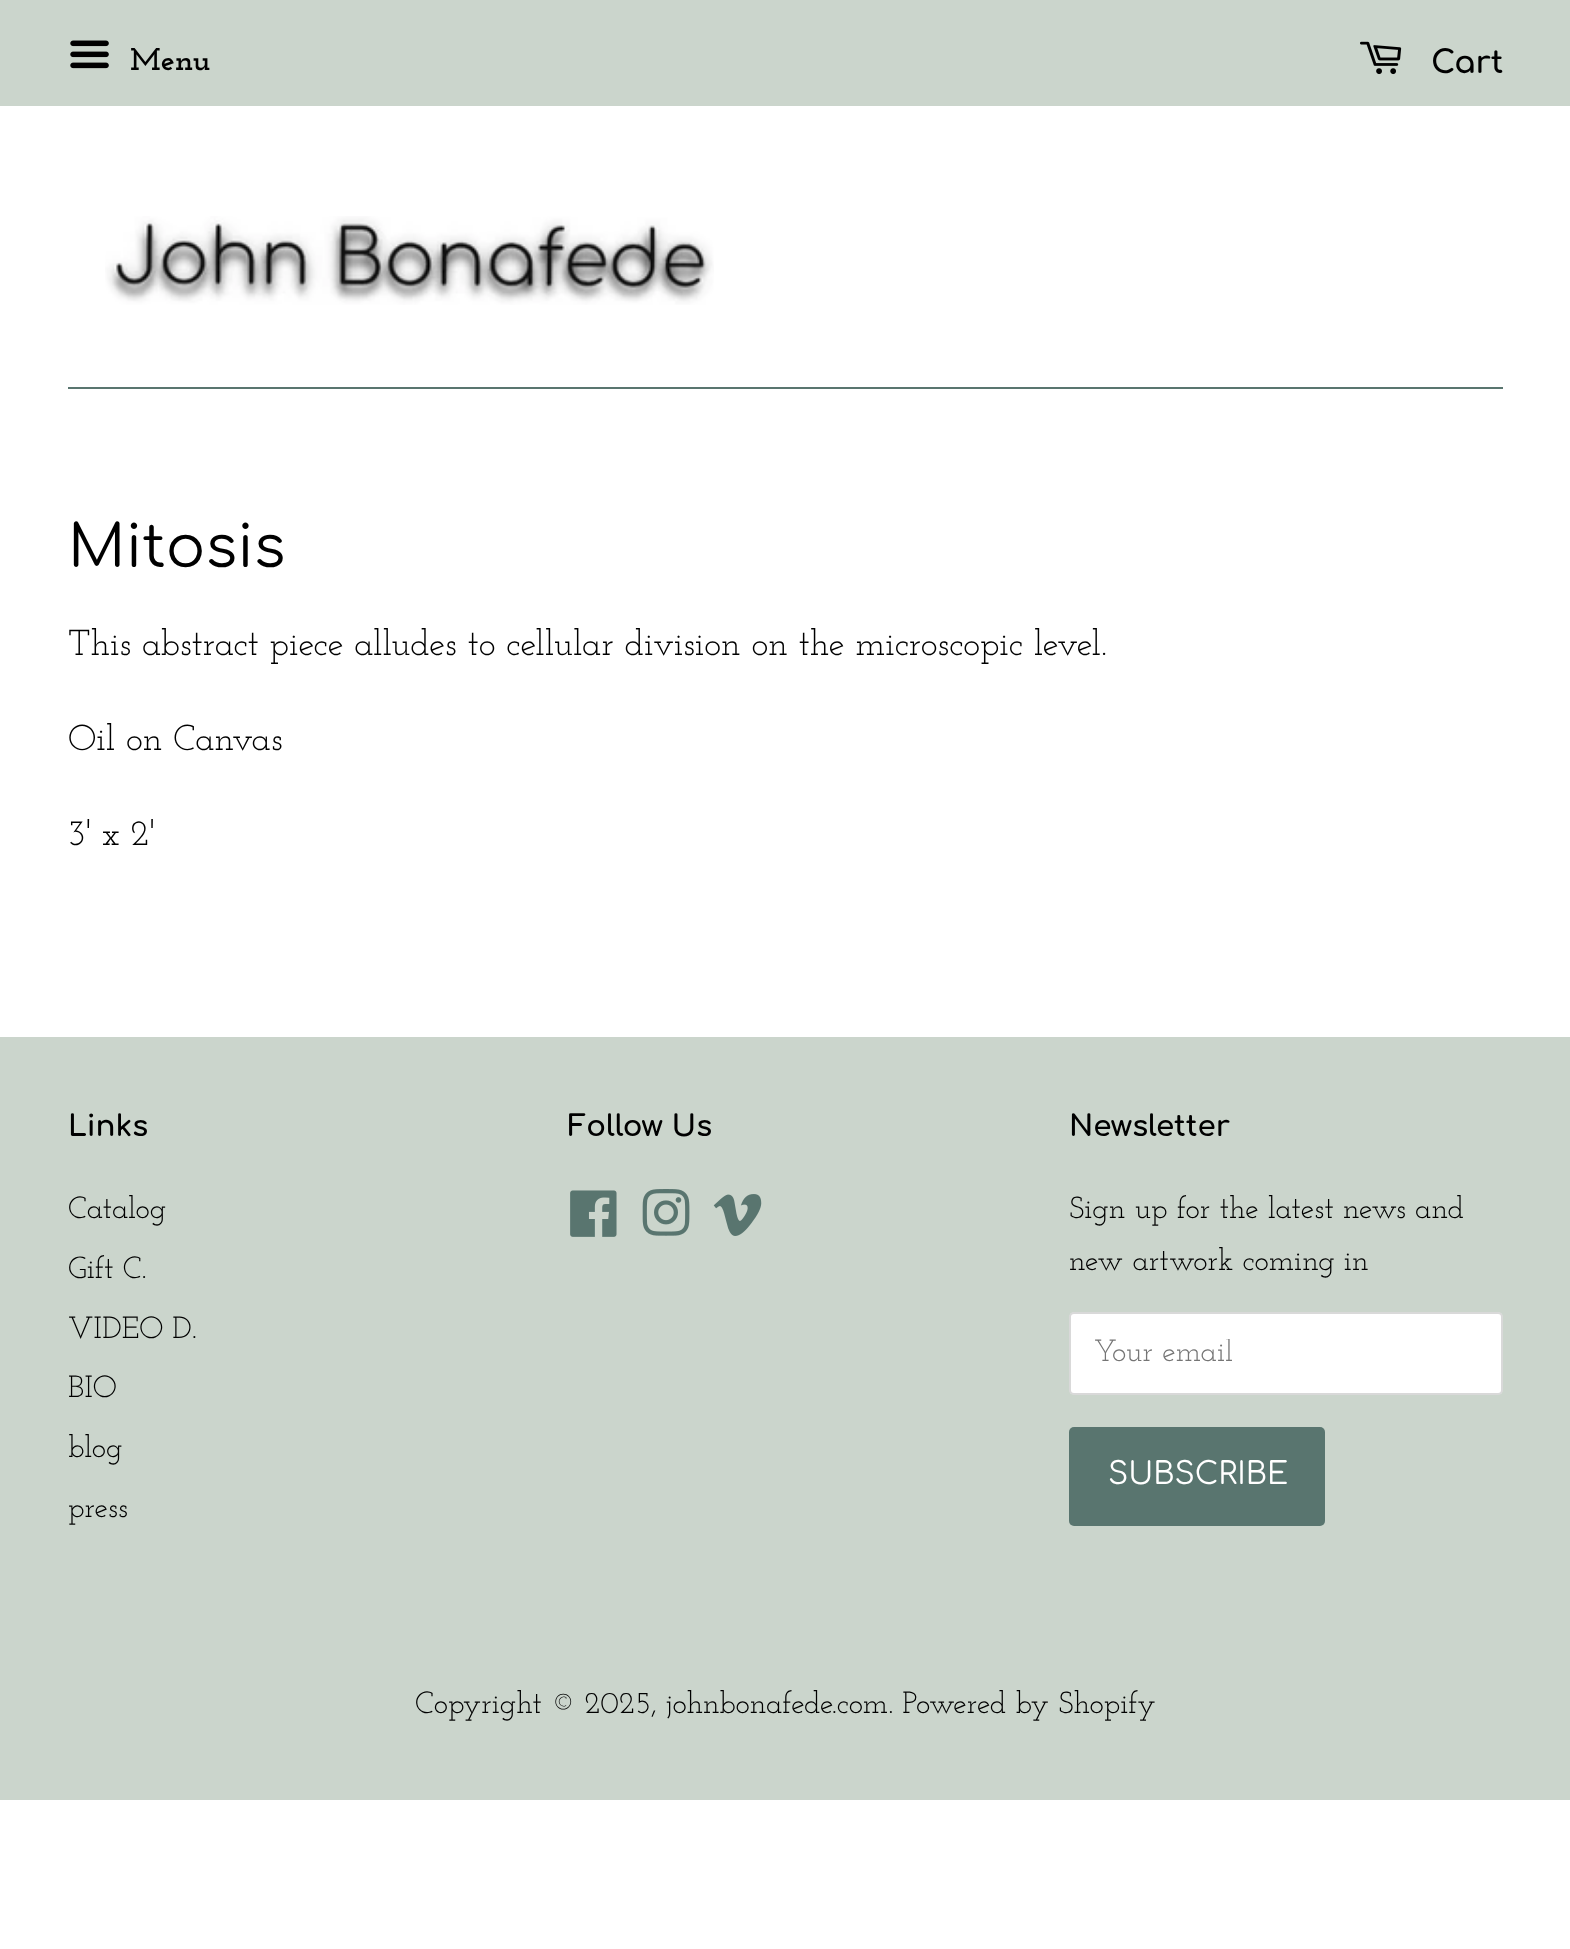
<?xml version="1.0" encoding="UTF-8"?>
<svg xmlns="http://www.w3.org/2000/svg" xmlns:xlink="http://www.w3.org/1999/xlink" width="1570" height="1949">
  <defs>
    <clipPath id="clip1"><rect x="1094" y="1339" width="384" height="29" /></clipPath>
  </defs>
  <rect width="100%" height="100%" fill="#ffffff" />
  <rect width="1570" height="106" fill="#cbd5cc" />
  <image x="70" y="40" width="39" height="29" xlink:href="image1.png" />
  <image x="1360" y="41" width="42" height="34" xlink:href="image2.png" />
  <rect x="68" y="387" width="1435" height="2" fill="#59756f" />
  <image x="105" y="216" width="609" height="89" xlink:href="image3.png" />
  <rect y="1037" width="1570" height="763" fill="#cbd5cc" />
  <image x="570" y="1190" width="47" height="47" xlink:href="image4.png" />
  <image x="642" y="1189" width="48" height="47" xlink:href="image5.png" />
  <image x="713" y="1194" width="49" height="42" xlink:href="image6.png" />
  <rect x="1069" y="1312" width="434" height="83" rx="5" fill="#ffffff" />
  <rect x="1070" y="1313" width="432" height="81" rx="4" fill="none" stroke="#000000" stroke-opacity="0.15" stroke-width="2" />
  <rect x="1069" y="1427" width="256" height="99" rx="5" fill="#59756f" />
  <text x="130" y="70" style="font-family: Josefin Slab; font-size: 31.5px; font-weight: bold; fill: #000000">Menu</text>
  <text x="1431" y="73" style="font-family: Comfortaa; font-size: 31.5px; font-weight: bold; fill: #000000">Cart</text>
  <text x="68" y="567" style="font-family: Comfortaa; font-size: 58.5px; fill: #000000">Mitosis</text>
  <text x="68" y="655" style="font-family: Josefin Slab; font-size: 36px; fill: #000000">This abstract piece alludes to cellular division on the microscopic level.</text>
  <text x="68" y="750" style="font-family: Josefin Slab; font-size: 36px; fill: #000000">Oil on Canvas</text>
  <text x="68" y="845" style="font-family: Josefin Slab; font-size: 36px; fill: #000000">3' x 2'</text>
  <text x="68" y="1136" style="font-family: Comfortaa; font-size: 29.25px; font-weight: bold; fill: #000000">Links</text>
  <text x="68" y="1218" style="font-family: Josefin Slab; font-size: 30.6px; fill: #000000">Catalog</text>
  <text x="68" y="1278" style="font-family: Josefin Slab; font-size: 30.6px; fill: #000000">Gift C.</text>
  <text x="68" y="1338" style="font-family: Josefin Slab; font-size: 30.6px; fill: #000000">VIDEO D.</text>
  <text x="68" y="1397" style="font-family: Josefin Slab; font-size: 30.6px; fill: #000000">BIO</text>
  <text x="68" y="1457" style="font-family: Josefin Slab; font-size: 30.6px; fill: #000000">blog</text>
  <text x="68" y="1517" style="font-family: Josefin Slab; font-size: 30.6px; fill: #000000">press</text>
  <text x="568" y="1136" style="font-family: Comfortaa; font-size: 29.25px; font-weight: bold; fill: #000000">Follow Us</text>
  <text x="1069" y="1136" style="font-family: Comfortaa; font-size: 29.25px; font-weight: bold; fill: #000000">Newsletter</text>
  <text x="1069" y="1218" style="font-family: Josefin Slab; font-size: 30.6px; fill: #000000">Sign up for the latest news and</text>
  <text x="1069" y="1270" style="font-family: Josefin Slab; font-size: 30.6px; fill: #000000">new artwork coming in</text>
  <g clip-path="url(#clip1)">
    <text x="1094" y="1361" style="font-family: Josefin Slab; font-size: 30.6px; fill: #757575">Your email</text>
  </g>
  <text x="1108" y="1484" style="font-family: Comfortaa; font-size: 30.6px; fill: #ffffff">SUBSCRIBE</text>
  <text x="415" y="1713" style="font-family: Josefin Slab; font-size: 30.6px; fill: #000000">Copyright © 2025, johnbonafede.com. Powered by Shopify</text>
</svg>
